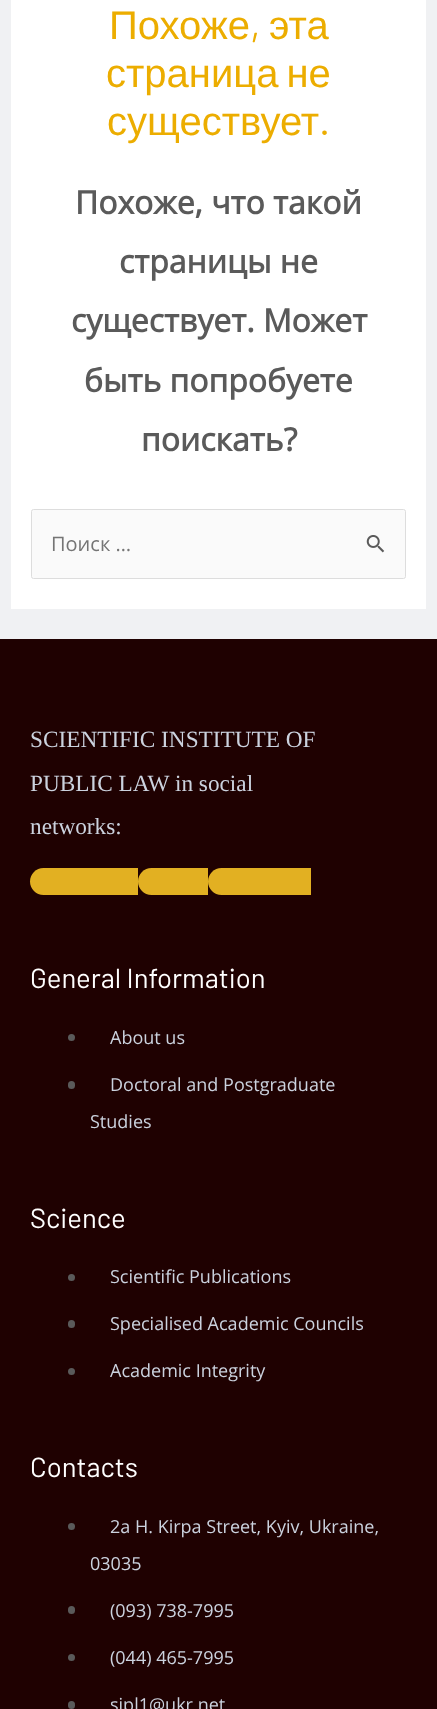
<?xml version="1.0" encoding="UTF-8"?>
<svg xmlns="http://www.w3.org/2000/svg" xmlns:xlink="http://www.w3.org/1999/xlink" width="437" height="1709">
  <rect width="100%" height="100%" fill="#f0f1f3" />
  <rect x="11" width="415" height="609" fill="#ffffff" />
  <rect x="31.5" y="509.5" width="374" height="69" rx="2" fill="#fafafa" stroke="#dddddd" />
  <image x="366" y="535" width="19" height="18" xlink:href="image1.png" />
  <rect y="639" width="437" height="1070" fill="#1f0101" />
  <path d="M 43.5 868 h 89.5 v 27 h -89.5 c -7.5 0 -13.5 -6 -13.5 -13.5 c 0 -7.5 6 -13.5 13.5 -13.5 z" fill="#e2b022" />
  <rect x="133" y="868" width="5" height="27" fill="#e2b022" />
  <path d="M 151.5 868 h 51.5 v 27 h -51.5 c -7.5 0 -13.5 -6 -13.5 -13.5 c 0 -7.5 6 -13.5 13.5 -13.5 z" fill="#e2b022" />
  <rect x="203" y="868" width="5" height="27" fill="#e2b022" />
  <path d="M 221.5 868 h 89.5 v 27 h -89.5 c -7.5 0 -13.5 -6 -13.5 -13.5 c 0 -7.5 6 -13.5 13.5 -13.5 z" fill="#e2b022" />
  <circle cx="71.5" cy="1037.5" r="3.5" fill="#5a5a5a" />
  <rect x="68" y="1081" width="7" height="8" rx="3.5" fill="#5a5a5a" />
  <circle cx="71.5" cy="1277.5" r="3.5" fill="#5a5a5a" />
  <rect x="68" y="1320" width="7" height="8" rx="3.5" fill="#5a5a5a" />
  <circle cx="71.5" cy="1371.5" r="3.5" fill="#5a5a5a" />
  <circle cx="71.5" cy="1526.5" r="3.5" fill="#5a5a5a" />
  <rect x="68" y="1606" width="7" height="8" rx="3.5" fill="#5a5a5a" />
  <circle cx="71.5" cy="1657.5" r="3.5" fill="#5a5a5a" />
  <rect x="68" y="1701" width="7" height="8" rx="3.5" fill="#5a5a5a" />
  <text x="109" y="39" style="font-family: Liberation Sans; font-size: 40px; fill: #ecad00">Похоже</text>
  <text x="250" y="39" style="font-family: Barlow; font-size: 40px; fill: #ecad00">,</text>
  <text x="269" y="39" style="font-family: Liberation Sans; font-size: 40px; fill: #ecad00">эта</text>
  <text x="106" y="87" word-spacing="-3" style="font-family: Liberation Sans; font-size: 40px; fill: #ecad00">страница не</text>
  <text x="107" y="135" style="font-family: Liberation Sans; font-size: 40px; fill: #ecad00">существует</text>
  <text x="319" y="135" style="font-family: Barlow; font-size: 40px; fill: #ecad00">.</text>
  <text x="75" y="214" style="font-family: Open Sans; font-size: 31.9px; font-weight: bold; fill: #5a5a5a">Похоже, что такой</text>
  <text x="119" y="273" style="font-family: Open Sans; font-size: 31.9px; font-weight: bold; fill: #5a5a5a">страницы не</text>
  <text x="71" y="332" style="font-family: Open Sans; font-size: 31.9px; font-weight: bold; fill: #5a5a5a">существует. Может</text>
  <text x="84" y="392" style="font-family: Open Sans; font-size: 31.9px; font-weight: bold; fill: #5a5a5a">быть попробуете</text>
  <text x="141" y="451" style="font-family: Open Sans; font-size: 31.9px; font-weight: bold; fill: #5a5a5a">поискать?</text>
  <text x="51" y="551" style="font-family: Open Sans; font-size: 20px; fill: #757575">Поиск …</text>
  <text x="30" y="747" style="font-family: Liberation Serif; font-size: 23.25px; fill: #cbd2de">SCIENTIFIC INSTITUTE OF</text>
  <text x="30" y="791" style="font-family: Liberation Serif; font-size: 23.25px; fill: #cbd2de">PUBLIC LAW in social</text>
  <text x="30" y="834" style="font-family: Liberation Serif; font-size: 23.25px; fill: #cbd2de">networks:</text>
  <text x="30" y="988" style="font-family: Barlow; font-size: 27.5px; fill: #ffffff">General Information</text>
  <text x="110" y="1044" style="font-family: Open Sans; font-size: 18px; fill: #cbd2de">About us</text>
  <text x="110" y="1091" style="font-family: Open Sans; font-size: 18px; fill: #cbd2de">Doctoral and Postgraduate</text>
  <text x="90" y="1128" style="font-family: Open Sans; font-size: 18px; fill: #cbd2de">Studies</text>
  <text x="30" y="1228" style="font-family: Barlow; font-size: 27.5px; fill: #ffffff">Science</text>
  <text x="110" y="1283" style="font-family: Open Sans; font-size: 18px; fill: #cbd2de">Scientific Publications</text>
  <text x="110" y="1330" style="font-family: Open Sans; font-size: 18px; fill: #cbd2de">Specialised Academic Councils</text>
  <text x="110" y="1377" style="font-family: Open Sans; font-size: 18px; fill: #cbd2de">Academic Integrity</text>
  <text x="30" y="1477" style="font-family: Barlow; font-size: 27.5px; fill: #ffffff">Contacts</text>
  <text x="110" y="1533" style="font-family: Open Sans; font-size: 18px; fill: #cbd2de">2a H. Kirpa Street, Kyiv, Ukraine,</text>
  <text x="90" y="1570" style="font-family: Open Sans; font-size: 18px; fill: #cbd2de">03035</text>
  <text x="110" y="1617" style="font-family: Open Sans; font-size: 18px; fill: #cbd2de">(093) 738-7995</text>
  <text x="110" y="1664" style="font-family: Open Sans; font-size: 18px; fill: #cbd2de">(044) 465-7995</text>
  <text x="110" y="1711" style="font-family: Open Sans; font-size: 18px; fill: #cbd2de">sipl1@ukr.net</text>
</svg>
